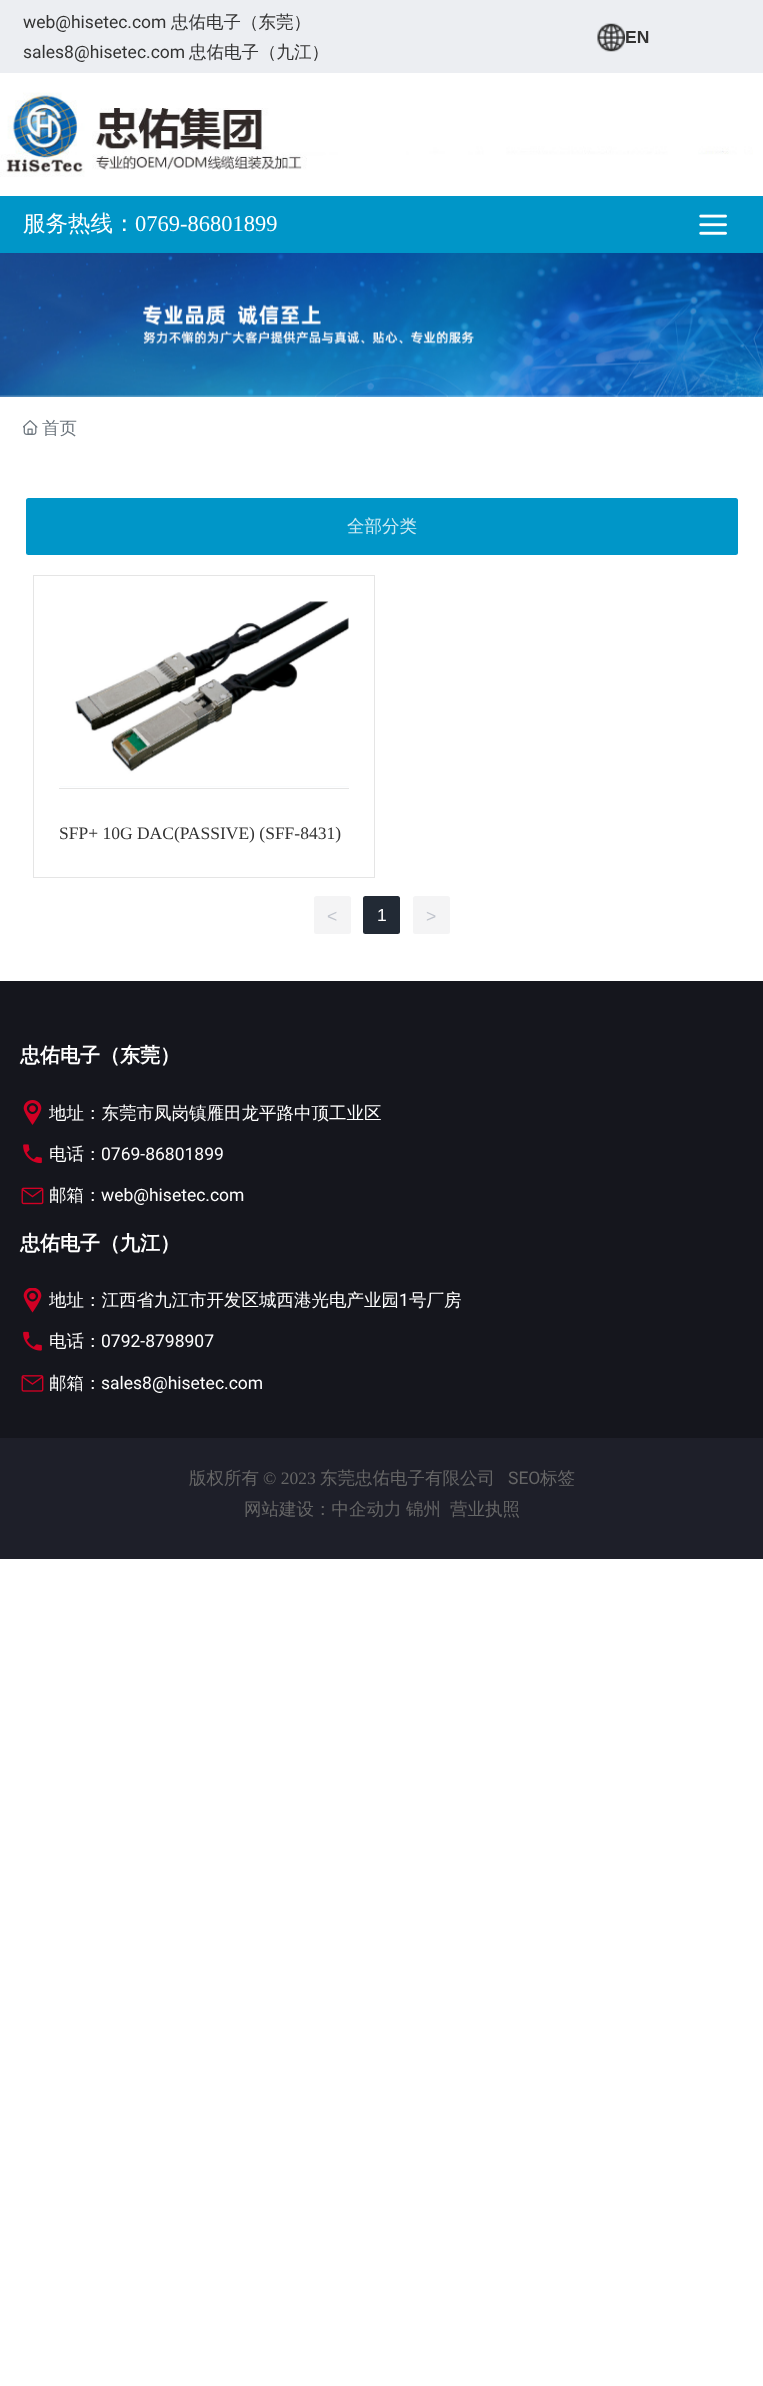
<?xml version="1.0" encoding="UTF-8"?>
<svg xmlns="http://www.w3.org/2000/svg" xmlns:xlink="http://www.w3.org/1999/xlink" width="763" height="2386">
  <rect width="100%" height="100%" fill="#ffffff" />
  <rect width="763" height="73" fill="#eceef2" />
  <image x="597" y="23" width="28" height="29" xlink:href="image1.png" />
  <image x="0" y="92" width="753" height="85" xlink:href="image2.png" />
  <rect y="196" width="763" height="57" fill="#0096c8" />
  <image x="699" y="214" width="28" height="21" xlink:href="image3.png" />
  <image x="0" y="253" width="763" height="144" xlink:href="image4.png" />
  <image x="23" y="420" width="15" height="15" xlink:href="image5.png" />
  <rect x="26" y="498" width="712" height="57" rx="2.5" fill="#0096c8" />
  <rect x="33.5" y="575.5" width="341" height="302" fill="none" stroke="#e5e5e5" />
  <image x="60" y="601" width="289" height="186" xlink:href="image6.png" />
  <rect x="59" y="788" width="290" height="1" fill="#e5e5e5" />
  <rect x="314" y="896" width="37" height="38" rx="2.5" fill="#f4f4f5" />
  <rect x="363" y="896" width="37" height="38" rx="2.5" fill="#222a35" />
  <rect x="413" y="896" width="37" height="38" rx="2.5" fill="#f4f4f5" />
  <rect y="981" width="763" height="457" fill="#15161d" />
  <image x="23" y="1100" width="19" height="25" xlink:href="image7.png" />
  <image x="23" y="1144" width="19" height="20" xlink:href="image8.png" />
  <image x="21" y="1187" width="23" height="18" xlink:href="image9.png" />
  <image x="23" y="1288" width="19" height="25" xlink:href="image10.png" />
  <image x="23" y="1331" width="19" height="20" xlink:href="image11.png" />
  <image x="21" y="1375" width="23" height="17" xlink:href="image12.png" />
  <rect y="1438" width="763" height="121" fill="#1e1f29" />
  <text x="23" y="28" style="font-family: Roboto; font-size: 17.5px; fill: #333333">web@hisetec.com</text>
  <text x="171" y="28" style="font-family: WenQuanYi Zen Hei; font-size: 17.5px; font-weight: 500; fill: #333333">忠佑电子（东莞）</text>
  <text x="23" y="58" style="font-family: Roboto; font-size: 17.5px; fill: #333333">sales8@hisetec.com</text>
  <text x="189" y="58" style="font-family: WenQuanYi Zen Hei; font-size: 17.5px; font-weight: 500; fill: #333333">忠佑电子（九江）</text>
  <text x="625" y="43" style="font-family: Liberation Sans; font-size: 17.5px; font-weight: bold; fill: #333333">EN</text>
  <text x="23" y="231" style="font-family: WenQuanYi Zen Hei; font-size: 22.5px; font-weight: 500; fill: #ffffff">服务热线：</text>
  <text x="135" y="231" style="font-family: Liberation Serif; font-size: 22.5px; fill: #ffffff">0769-86801899</text>
  <text x="42" y="434" style="font-family: WenQuanYi Zen Hei; font-size: 17.5px; font-weight: 500; fill: #6c757d">首页</text>
  <text x="347" y="532" style="font-family: WenQuanYi Zen Hei; font-size: 17.5px; font-weight: 500; fill: #cceaf4">全部分类</text>
  <text x="59" y="839" style="font-family: Liberation Serif; font-size: 17.5px; fill: #333333">SFP+ 10G DAC(PASSIVE) (SFF-8431)</text>
  <text x="327" y="922" style="font-family: Liberation Sans; font-size: 17.5px; fill: #c0c4cc">&lt;</text>
  <text x="377" y="921" style="font-family: Liberation Sans; font-size: 17.5px; fill: #ffffff">1</text>
  <text x="426" y="922" style="font-family: Liberation Sans; font-size: 17.5px; fill: #c0c4cc">&gt;</text>
  <text x="20" y="1062" style="font-family: WenQuanYi Zen Hei; font-size: 20px; font-weight: bold; fill: #ffffff">忠佑电子（东莞）</text>
  <text x="49" y="1119" style="font-family: WenQuanYi Zen Hei; font-size: 17.5px; font-weight: 500; fill: #ffffff">地址：东莞市凤岗镇雁田龙平路中顶工业区</text>
  <text x="49" y="1160" style="font-family: WenQuanYi Zen Hei; font-size: 17.5px; font-weight: 500; fill: #ffffff">电话：</text>
  <text x="101" y="1160" style="font-family: Roboto; font-size: 17.5px; fill: #ffffff">0769-86801899</text>
  <text x="49" y="1201" style="font-family: WenQuanYi Zen Hei; font-size: 17.5px; font-weight: 500; fill: #ffffff">邮箱：</text>
  <text x="101" y="1201" style="font-family: Roboto; font-size: 17.5px; fill: #ffffff">web@hisetec.com</text>
  <text x="20" y="1250" style="font-family: WenQuanYi Zen Hei; font-size: 20px; font-weight: bold; fill: #ffffff">忠佑电子（九江）</text>
  <text x="49" y="1306" style="font-family: WenQuanYi Zen Hei; font-size: 17.5px; font-weight: 500; fill: #ffffff">地址：江西省九江市开发区城西港光电产业园</text>
  <text x="399" y="1306" style="font-family: Roboto; font-size: 17.5px; fill: #ffffff">1</text>
  <text x="409" y="1306" style="font-family: WenQuanYi Zen Hei; font-size: 17.5px; font-weight: 500; fill: #ffffff">号厂房</text>
  <text x="49" y="1347" style="font-family: WenQuanYi Zen Hei; font-size: 17.5px; font-weight: 500; fill: #ffffff">电话：</text>
  <text x="101" y="1347" style="font-family: Roboto; font-size: 17.5px; fill: #ffffff">0792-8798907</text>
  <text x="49" y="1389" style="font-family: WenQuanYi Zen Hei; font-size: 17.5px; font-weight: 500; fill: #ffffff">邮箱：</text>
  <text x="101" y="1389" style="font-family: Roboto; font-size: 17.5px; fill: #ffffff">sales8@hisetec.com</text>
  <text x="189" y="1484" style="font-family: WenQuanYi Zen Hei; font-size: 17.5px; font-weight: 500; fill: #666666">版权所有</text>
  <text x="263" y="1484" style="font-family: Liberation Serif; font-size: 17.5px; fill: #666666">© 2023</text>
  <text x="320" y="1484" style="font-family: WenQuanYi Zen Hei; font-size: 17.5px; font-weight: 500; fill: #666666">东莞忠佑电子有限公司</text>
  <text x="508" y="1484" style="font-family: Roboto; font-size: 17.5px; fill: #666666">SEO</text>
  <text x="540" y="1484" style="font-family: WenQuanYi Zen Hei; font-size: 17.5px; font-weight: 500; fill: #666666">标签</text>
  <text x="244" y="1515" style="font-family: WenQuanYi Zen Hei; font-size: 17.5px; font-weight: 500; fill: #666666">网站建设：中企动力</text>
  <text x="406" y="1515" style="font-family: WenQuanYi Zen Hei; font-size: 17.5px; font-weight: 500; fill: #666666">锦州</text>
  <text x="450" y="1515" style="font-family: WenQuanYi Zen Hei; font-size: 17.5px; font-weight: 500; fill: #666666">营业执照</text>
</svg>
